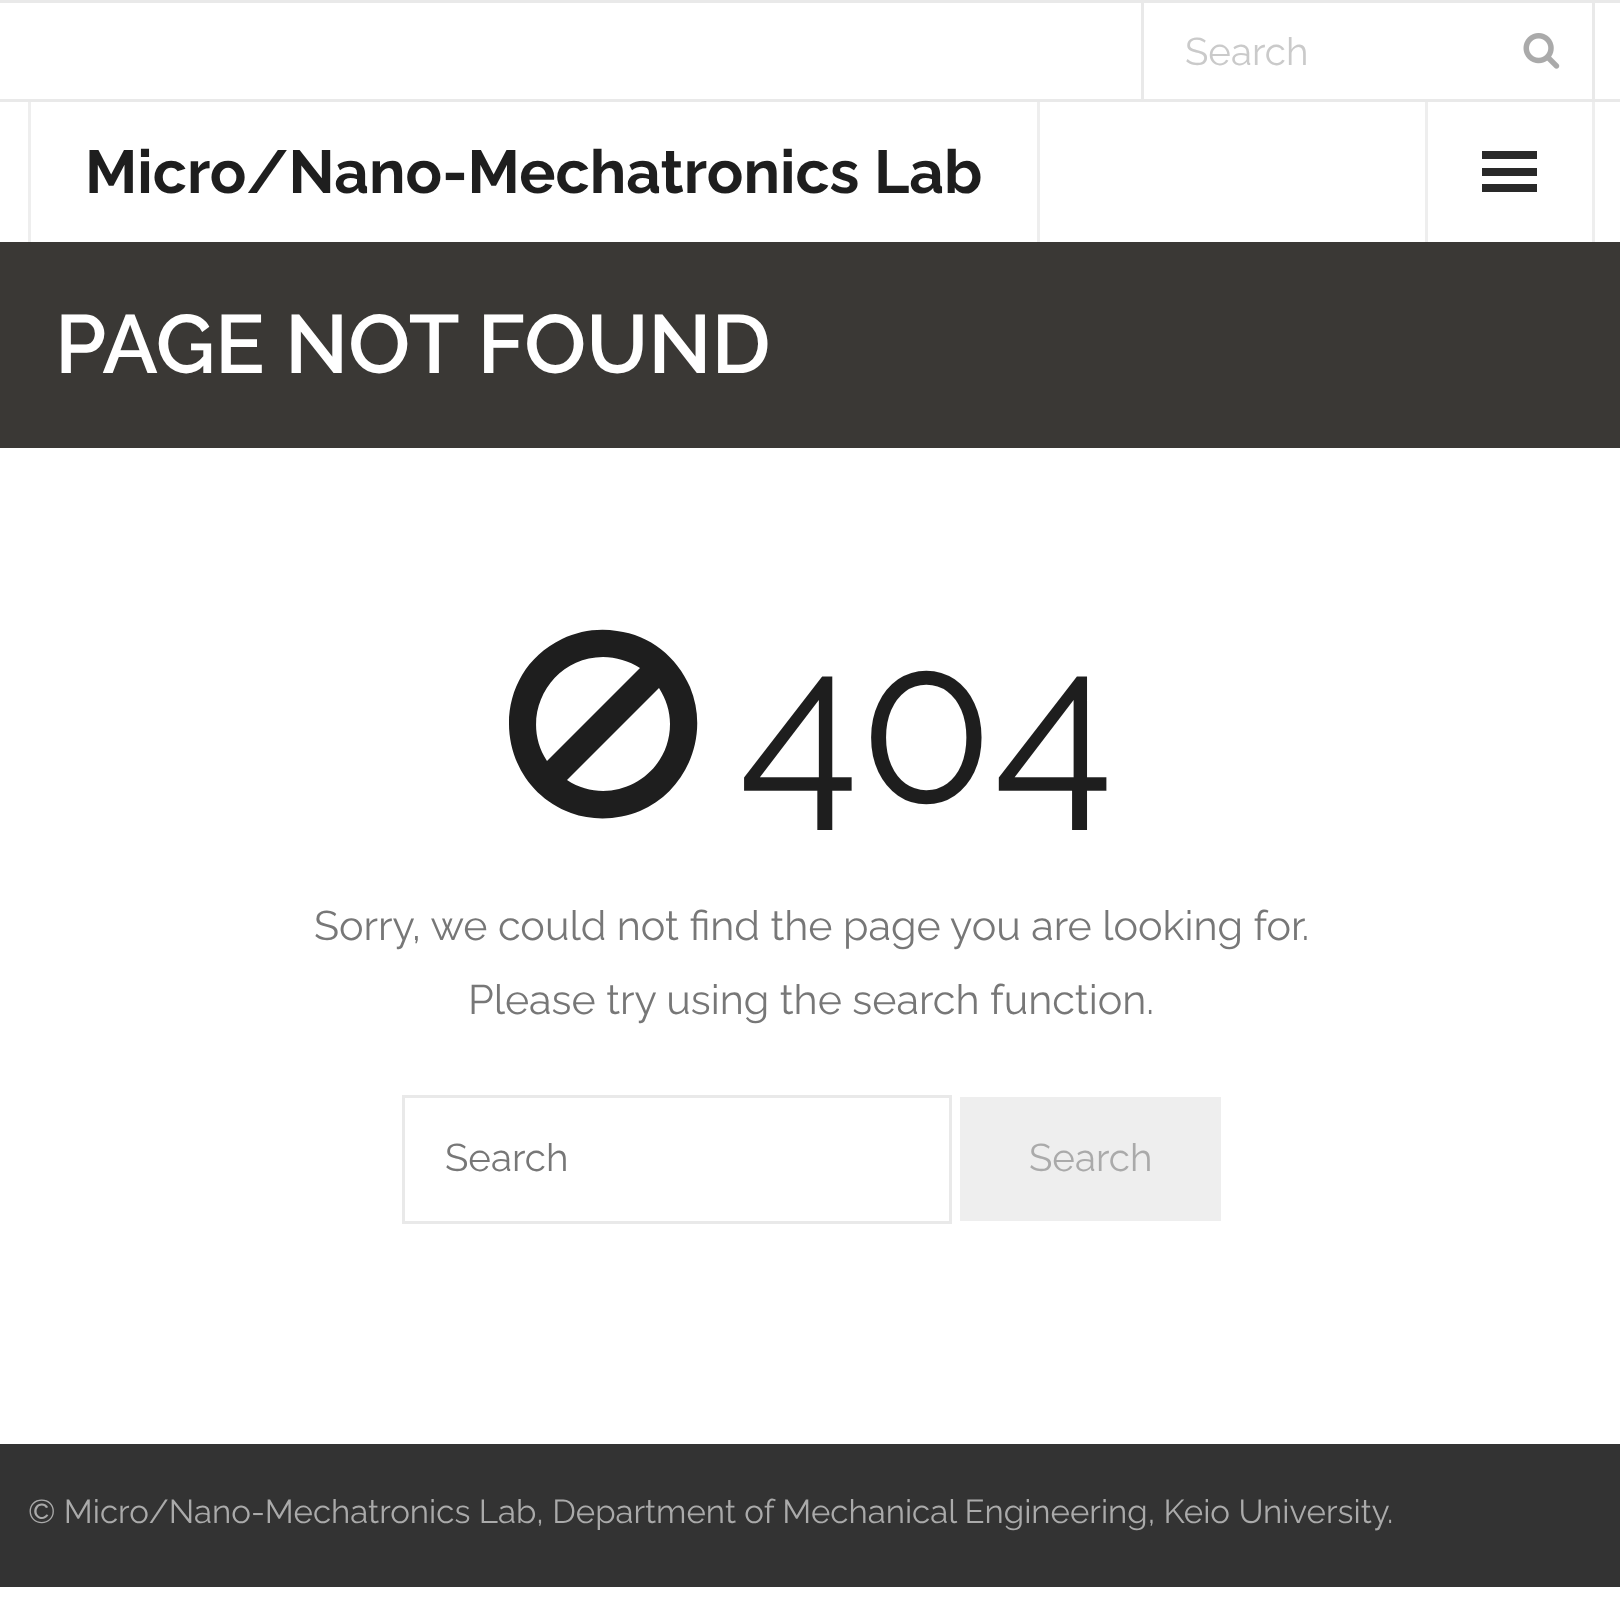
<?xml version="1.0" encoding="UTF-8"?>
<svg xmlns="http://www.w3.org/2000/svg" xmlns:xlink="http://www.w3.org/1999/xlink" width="1620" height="1620">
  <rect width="100%" height="100%" fill="#ffffff" />
  <rect width="1620" height="3" fill="#e9e9e9" />
  <rect y="99" width="1620" height="3" fill="#e9e9e9" />
  <rect x="1592" y="3" width="3" height="96" fill="#e9e9e9" />
  <rect x="1141" y="3" width="3" height="96" fill="#e9e9e9" />
  <image x="1523" y="33" width="37" height="36" xlink:href="image1.png" />
  <rect x="1037" y="102" width="3" height="140" fill="#eeeeee" />
  <rect x="28" y="102" width="3" height="140" fill="#eeeeee" />
  <rect x="1592" y="102" width="3" height="140" fill="#eeeeee" />
  <rect x="1425" y="102" width="3" height="140" fill="#eeeeee" />
  <rect x="1482" y="151" width="55" height="8" fill="#292929" />
  <rect x="1482" y="168" width="55" height="8" fill="#292929" />
  <rect x="1482" y="184" width="55" height="8" fill="#292929" />
  <rect y="242" width="1620" height="206" fill="#3a3835" />
  <path d="M 670 724 c 0 -13 -4 -25 -11 -36 l -92 92 c 44 29 103 -3 103 -56 z m -123 37 l 93 -93 c -11 -7 -24 -11 -37 -11 c -53 0 -85 60 -56 104 z m 143 -74 c 20 48 -3 104 -50 124 c -22 9 -47 10 -69 2 c -78 -29 -84 -138 -9 -174 c 17 -8 36 -11 55 -8 c 33 4 60 26 73 56 z" fill="#1e1e1e" />
  <rect x="403.5" y="1096.5" width="547" height="126" fill="none" stroke="#e9e9e9" stroke-width="3" />
  <rect x="960" y="1097" width="261" height="124" fill="#eeeeee" />
  <rect y="1444" width="1620" height="143" fill="#333333" />
  <text x="1185" y="65" style="font-family: Raleway; font-size: 38.5px; fill: #cacaca">Search</text>
  <text x="85" y="193" style="font-family: Raleway; font-size: 60.5px; font-weight: bold; fill: #1e1e1e">Micro/Nano-Mechatronics Lab</text>
  <text x="55" y="373" style="font-family: Raleway; font-size: 82.5px; font-weight: 600; fill: #ffffff">PAGE NOT FOUND</text>
  <text x="739" y="802" style="font-family: Raleway; font-size: 220px; fill: #1e1e1e">404</text>
  <text x="314" y="940" style="font-family: Raleway; font-size: 41.25px; fill: #777777">Sorry, we could not find the page you are looking for.</text>
  <text x="468" y="1014" style="font-family: Raleway; font-size: 41.25px; fill: #777777">Please try using the search function.</text>
  <text x="445" y="1171" style="font-family: Raleway; font-size: 38.5px; fill: #777777">Search</text>
  <text x="1029" y="1171" style="font-family: Raleway; font-size: 38.5px; fill: #aaaaaa">Search</text>
  <text x="28" y="1523" style="font-family: Raleway; font-size: 33px; fill: #aaaaaa">© Micro/Nano-Mechatronics Lab, Department of Mechanical Engineering, Keio University.</text>
</svg>
